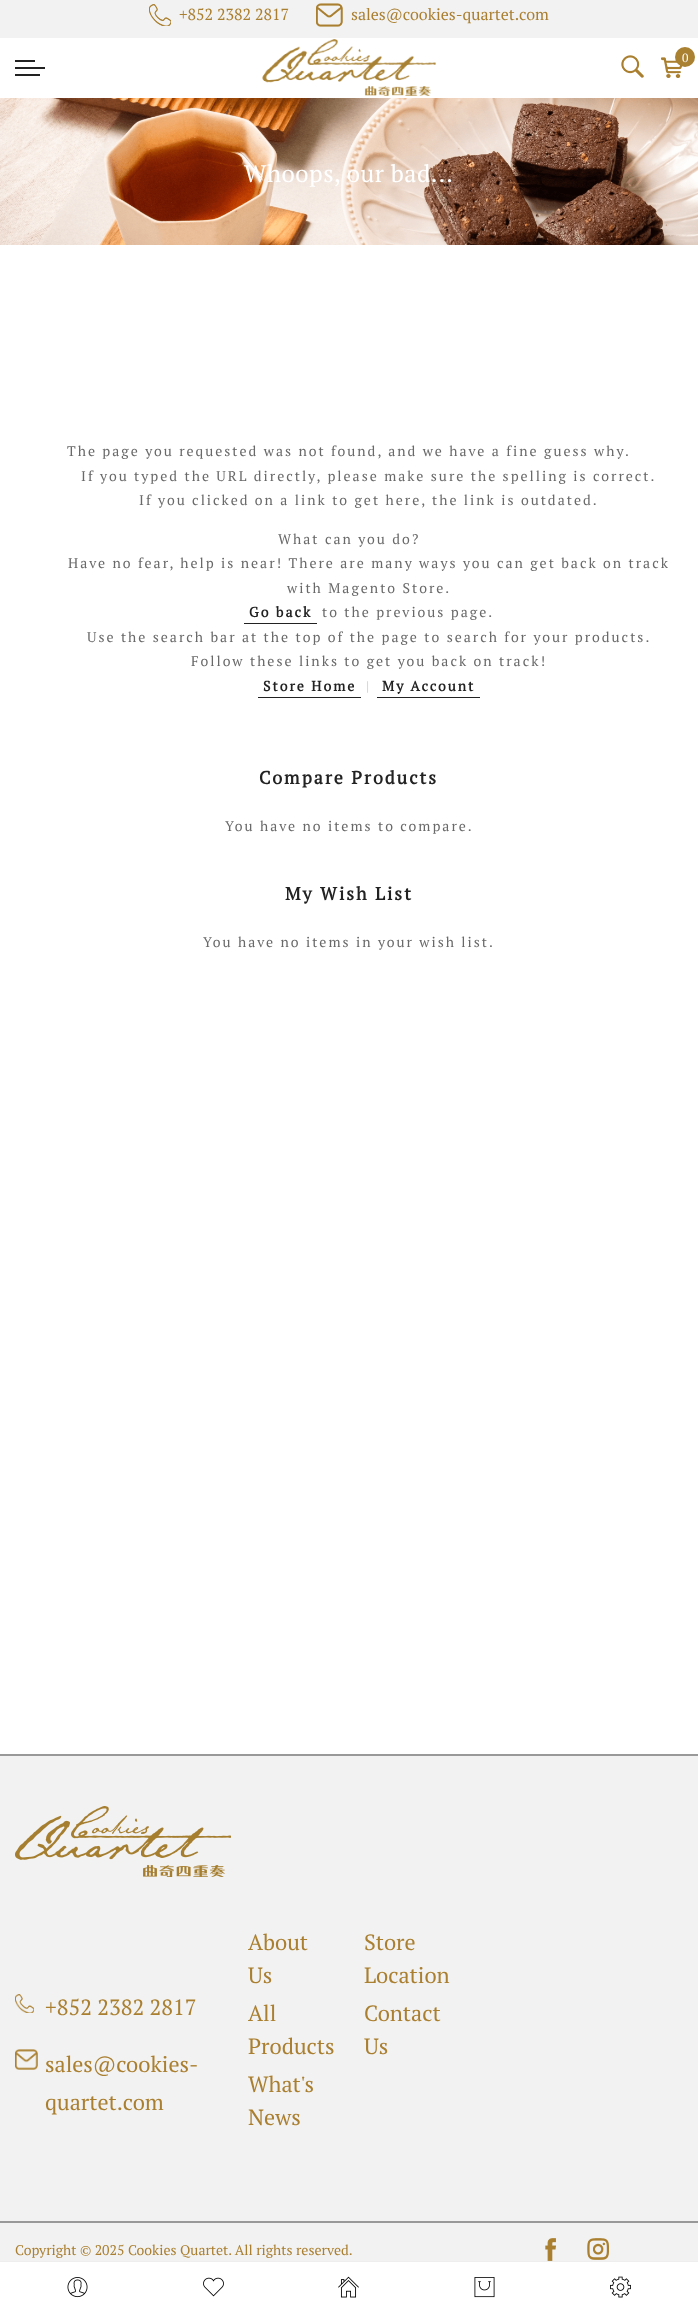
<?xml version="1.0" encoding="UTF-8"?>
<svg xmlns="http://www.w3.org/2000/svg" xmlns:xlink="http://www.w3.org/1999/xlink" width="698" height="2312">
  <rect width="100%" height="100%" fill="#ffffff" />
  <rect width="698" height="38" fill="#f2f2f2" />
  <image x="149" y="4" width="22" height="22" xlink:href="image1.png" />
  <image x="316" y="3" width="27" height="24" xlink:href="image2.png" />
  <image x="262" y="39" width="174" height="57" xlink:href="image3.png" />
  <image x="621" y="55" width="23" height="23" xlink:href="image4.png" />
  <image x="661" y="57" width="22" height="21" xlink:href="image5.png" />
  <circle cx="685" cy="57" r="10" fill="#aa8131" />
  <rect x="15" y="60" width="20" height="2" fill="#222222" />
  <rect x="15" y="67" width="30" height="2" fill="#222222" />
  <rect x="15" y="74" width="25" height="2" fill="#222222" />
  <rect y="2261" width="698" height="1" fill="#eeeeee" />
  <image x="67" y="2277" width="21" height="21" xlink:href="image6.png" />
  <image x="203" y="2277" width="21" height="20" xlink:href="image7.png" />
  <image x="338" y="2276" width="21" height="22" xlink:href="image8.png" />
  <image x="474" y="2277" width="21" height="21" xlink:href="image9.png" />
  <image x="610" y="2276" width="21" height="22" xlink:href="image10.png" />
  <image x="0" y="98" width="698" height="147" xlink:href="image11.png" />
  <rect x="244" y="623" width="73" height="1" fill="#222222" />
  <rect x="258" y="697" width="103" height="1" fill="#222222" />
  <rect x="377" y="697" width="103" height="1" fill="#222222" />
  <rect y="1756" width="698" height="505" fill="#f2f2f2" />
  <rect y="1754" width="698" height="2" fill="#999999" />
  <image x="15" y="1806" width="216" height="71" xlink:href="image12.png" />
  <image x="15" y="1994" width="19" height="19" xlink:href="image13.png" />
  <image x="15" y="2049" width="23" height="21" xlink:href="image14.png" />
  <rect y="2221" width="698" height="2" fill="#999999" />
  <image x="545" y="2238" width="11" height="23" xlink:href="image15.png" />
  <image x="587" y="2238" width="22" height="22" xlink:href="image16.png" />
  <text x="179" y="20" style="font-family: PT Serif; font-size: 16px; fill: #aa7f30">+852 2382 2817</text>
  <text x="351" y="20" style="font-family: PT Serif; font-size: 16px; fill: #aa7f30">sales@cookies-quartet.com</text>
  <text x="682" y="62" style="font-family: PT Serif; font-size: 12px; fill: #ffffff">0</text>
  <text x="244" y="182" style="font-family: PT Serif; font-size: 24px; letter-spacing: 0.5px; fill: #ffffff">Whoops, our bad...</text>
  <text x="67" y="456" style="font-family: PT Serif; font-size: 14px; letter-spacing: 2px; fill: #696969">The page you requested was not found, and we have a fine guess why.</text>
  <text x="81" y="481" style="font-family: PT Serif; font-size: 14px; letter-spacing: 2px; fill: #696969">If you typed the URL directly, please make sure the spelling is correct.</text>
  <text x="139" y="505" style="font-family: PT Serif; font-size: 14px; letter-spacing: 2px; fill: #696969">If you clicked on a link to get here, the link is outdated.</text>
  <text x="278" y="544" style="font-family: PT Serif; font-size: 14px; letter-spacing: 2px; fill: #696969">What can you do?</text>
  <text x="68" y="568" style="font-family: PT Serif; font-size: 14px; letter-spacing: 2px; fill: #696969">Have no fear, help is near! There are many ways you can get back on track</text>
  <text x="287" y="593" style="font-family: PT Serif; font-size: 14px; letter-spacing: 2px; fill: #696969">with Magento Store.</text>
  <text x="249" y="617" style="font-family: PT Serif; font-size: 14px; font-weight: bold; letter-spacing: 2px; fill: #222222">Go back</text>
  <text x="322" y="617" style="font-family: PT Serif; font-size: 14px; letter-spacing: 2px; fill: #696969">to the previous page.</text>
  <text x="87" y="642" style="font-family: PT Serif; font-size: 14px; letter-spacing: 2px; fill: #696969">Use the search bar at the top of the page to search for your products.</text>
  <text x="191" y="666" style="font-family: PT Serif; font-size: 14px; letter-spacing: 2px; fill: #696969">Follow these links to get you back on track!</text>
  <text x="263" y="691" style="font-family: PT Serif; font-size: 14px; font-weight: bold; letter-spacing: 2px; fill: #222222">Store Home</text>
  <text x="366" y="691" style="font-family: PT Serif; font-size: 14px; letter-spacing: 2px; fill: #cccccc">|</text>
  <text x="382" y="691" style="font-family: PT Serif; font-size: 14px; font-weight: bold; letter-spacing: 2px; fill: #222222">My Account</text>
  <text x="259" y="784" style="font-family: PT Serif; font-size: 18px; font-weight: bold; letter-spacing: 2px; fill: #222222">Compare Products</text>
  <text x="225" y="831" style="font-family: PT Serif; font-size: 14px; letter-spacing: 2px; fill: #696969">You have no items to compare.</text>
  <text x="285" y="900" style="font-family: PT Serif; font-size: 18px; font-weight: bold; letter-spacing: 2px; fill: #222222">My Wish List</text>
  <text x="203" y="947" style="font-family: PT Serif; font-size: 14px; letter-spacing: 2px; fill: #696969">You have no items in your wish list.</text>
  <text x="45" y="2015" style="font-family: PT Serif; font-size: 22px; fill: #aa7f30">+852 2382 2817</text>
  <text x="45" y="2072" style="font-family: PT Serif; font-size: 22px; fill: #aa7f30">sales@cookies-</text>
  <text x="45" y="2110" style="font-family: PT Serif; font-size: 22px; fill: #aa7f30">quartet.com</text>
  <text x="248" y="1950" style="font-family: PT Serif; font-size: 22px; fill: #aa7f30">About</text>
  <text x="248" y="1983" style="font-family: PT Serif; font-size: 22px; fill: #aa7f30">Us</text>
  <text x="248" y="2021" style="font-family: PT Serif; font-size: 22px; fill: #aa7f30">All</text>
  <text x="248" y="2054" style="font-family: PT Serif; font-size: 22px; fill: #aa7f30">Products</text>
  <text x="248" y="2092" style="font-family: PT Serif; font-size: 22px; fill: #aa7f30">What's</text>
  <text x="248" y="2125" style="font-family: PT Serif; font-size: 22px; fill: #aa7f30">News</text>
  <text x="364" y="1950" style="font-family: PT Serif; font-size: 22px; fill: #aa7f30">Store</text>
  <text x="364" y="1983" style="font-family: PT Serif; font-size: 22px; fill: #aa7f30">Location</text>
  <text x="364" y="2021" style="font-family: PT Serif; font-size: 22px; fill: #aa7f30">Contact</text>
  <text x="364" y="2054" style="font-family: PT Serif; font-size: 22px; fill: #aa7f30">Us</text>
  <text x="15" y="2255" style="font-family: PT Serif; font-size: 14px; fill: #aa7f30">Copyright © 2025 Cookies Quartet. All rights reserved.</text>
</svg>
